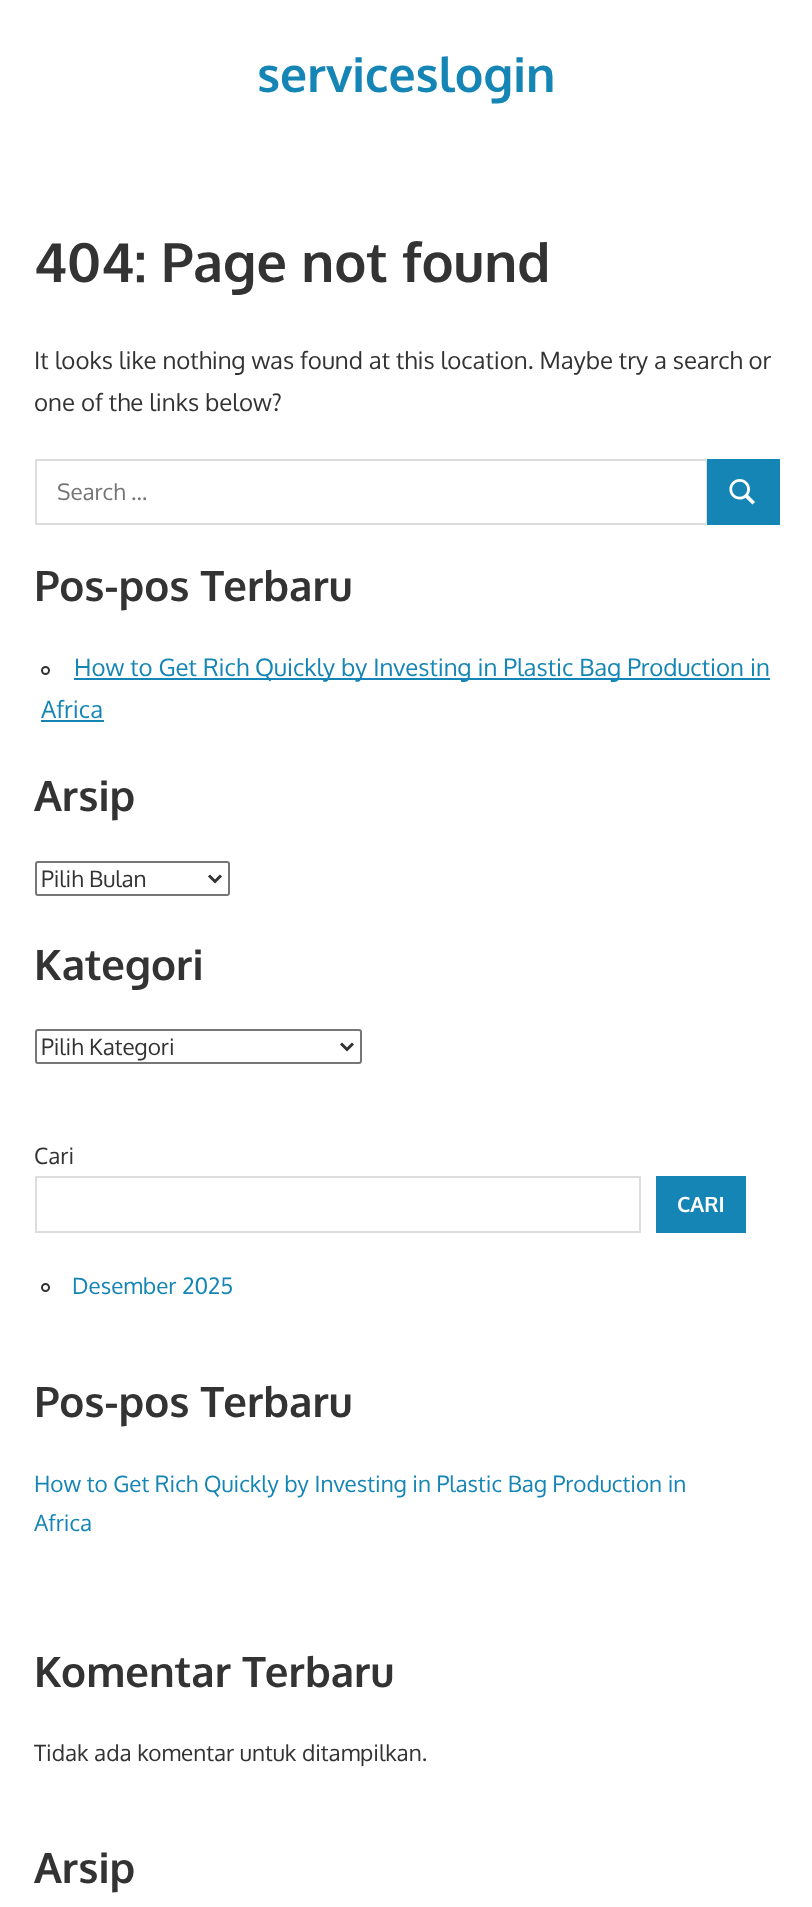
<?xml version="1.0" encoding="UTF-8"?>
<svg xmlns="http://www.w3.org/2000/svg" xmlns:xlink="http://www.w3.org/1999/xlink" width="812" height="1907">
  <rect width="100%" height="100%" fill="#ffffff" />
  <rect x="36" y="460" width="671" height="64" fill="none" stroke="#dddddd" stroke-width="2" />
  <rect x="707" y="459" width="73" height="66" fill="#1585b5" />
  <image x="729" y="479" width="26" height="26" xlink:href="image1.png" />
  <circle cx="45.5" cy="670.5" r="3.5" fill="none" stroke="#333333" stroke-width="2" />
  <rect x="74" y="678" width="696" height="2" fill="#1585b5" />
  <rect x="41" y="720" width="63" height="2" fill="#1585b5" />
  <rect x="36" y="862" width="193" height="33" rx="2" fill="none" stroke="#767676" stroke-width="2" />
  <path d="M 209 875.5 l 6 6 l 6 -6" fill="none" stroke="#333333" stroke-width="3" />
  <rect x="36" y="1030" width="325" height="33" rx="2" fill="none" stroke="#767676" stroke-width="2" />
  <path d="M 341 1043.5 l 6 6 l 6 -6" fill="none" stroke="#333333" stroke-width="3" />
  <rect x="36" y="1177" width="604" height="55" fill="none" stroke="#dddddd" stroke-width="2" />
  <rect x="656" y="1176" width="90" height="57" fill="#1585b5" />
  <circle cx="45.5" cy="1287.5" r="3.5" fill="none" stroke="#333333" stroke-width="2" />
  <text x="257" y="92" style="font-family: Oxygen; font-size: 48px; font-weight: bold; fill: #1585b5">serviceslogin</text>
  <text x="34" y="282" style="font-family: Oxygen; font-size: 54px; font-weight: bold; fill: #333333">404: Page not found</text>
  <text x="34" y="369" style="font-family: Oxygen; font-size: 24px; fill: #333333">It looks like nothing was found at this location. Maybe try a search or</text>
  <text x="34" y="411" style="font-family: Oxygen; font-size: 24px; fill: #333333">one of the links below?</text>
  <text x="57" y="500" style="font-family: Oxygen; font-size: 22.5px; fill: #757575">Search …</text>
  <text x="34" y="601" style="font-family: Oxygen; font-size: 42px; font-weight: bold; fill: #333333">Pos-pos Terbaru</text>
  <text x="74" y="676" style="font-family: Oxygen; font-size: 24px; fill: #1585b5">How to Get Rich Quickly by Investing in Plastic Bag Production in</text>
  <text x="41" y="718" style="font-family: Oxygen; font-size: 24px; fill: #1585b5">Africa</text>
  <text x="34" y="811" style="font-family: Oxygen; font-size: 42px; font-weight: bold; fill: #333333">Arsip</text>
  <text x="41" y="887" style="font-family: Oxygen; font-size: 22.5px; fill: #333333">Pilih Bulan</text>
  <text x="34" y="980" style="font-family: Oxygen; font-size: 42px; font-weight: bold; fill: #333333">Kategori</text>
  <text x="41" y="1055" style="font-family: Oxygen; font-size: 22.5px; fill: #333333">Pilih Kategori</text>
  <text x="34" y="1164" style="font-family: Oxygen; font-size: 22.5px; fill: #333333">Cari</text>
  <text x="677" y="1212" style="font-family: Oxygen; font-size: 21px; font-weight: bold; fill: #ffffff">CARI</text>
  <text x="72" y="1294" style="font-family: Oxygen; font-size: 22.5px; fill: #1585b5">Desember 2025</text>
  <text x="34" y="1417" style="font-family: Oxygen; font-size: 42px; font-weight: bold; fill: #333333">Pos-pos Terbaru</text>
  <text x="34" y="1492" style="font-family: Oxygen; font-size: 22.5px; fill: #1585b5">How to Get Rich Quickly by Investing in Plastic Bag Production in</text>
  <text x="34" y="1531" style="font-family: Oxygen; font-size: 22.5px; fill: #1585b5">Africa</text>
  <text x="34" y="1687" style="font-family: Oxygen; font-size: 42px; font-weight: bold; fill: #333333">Komentar Terbaru</text>
  <text x="34" y="1761" style="font-family: Oxygen; font-size: 22.5px; fill: #333333">Tidak ada komentar untuk ditampilkan.</text>
  <text x="34" y="1883" style="font-family: Oxygen; font-size: 42px; font-weight: bold; fill: #333333">Arsip</text>
</svg>
